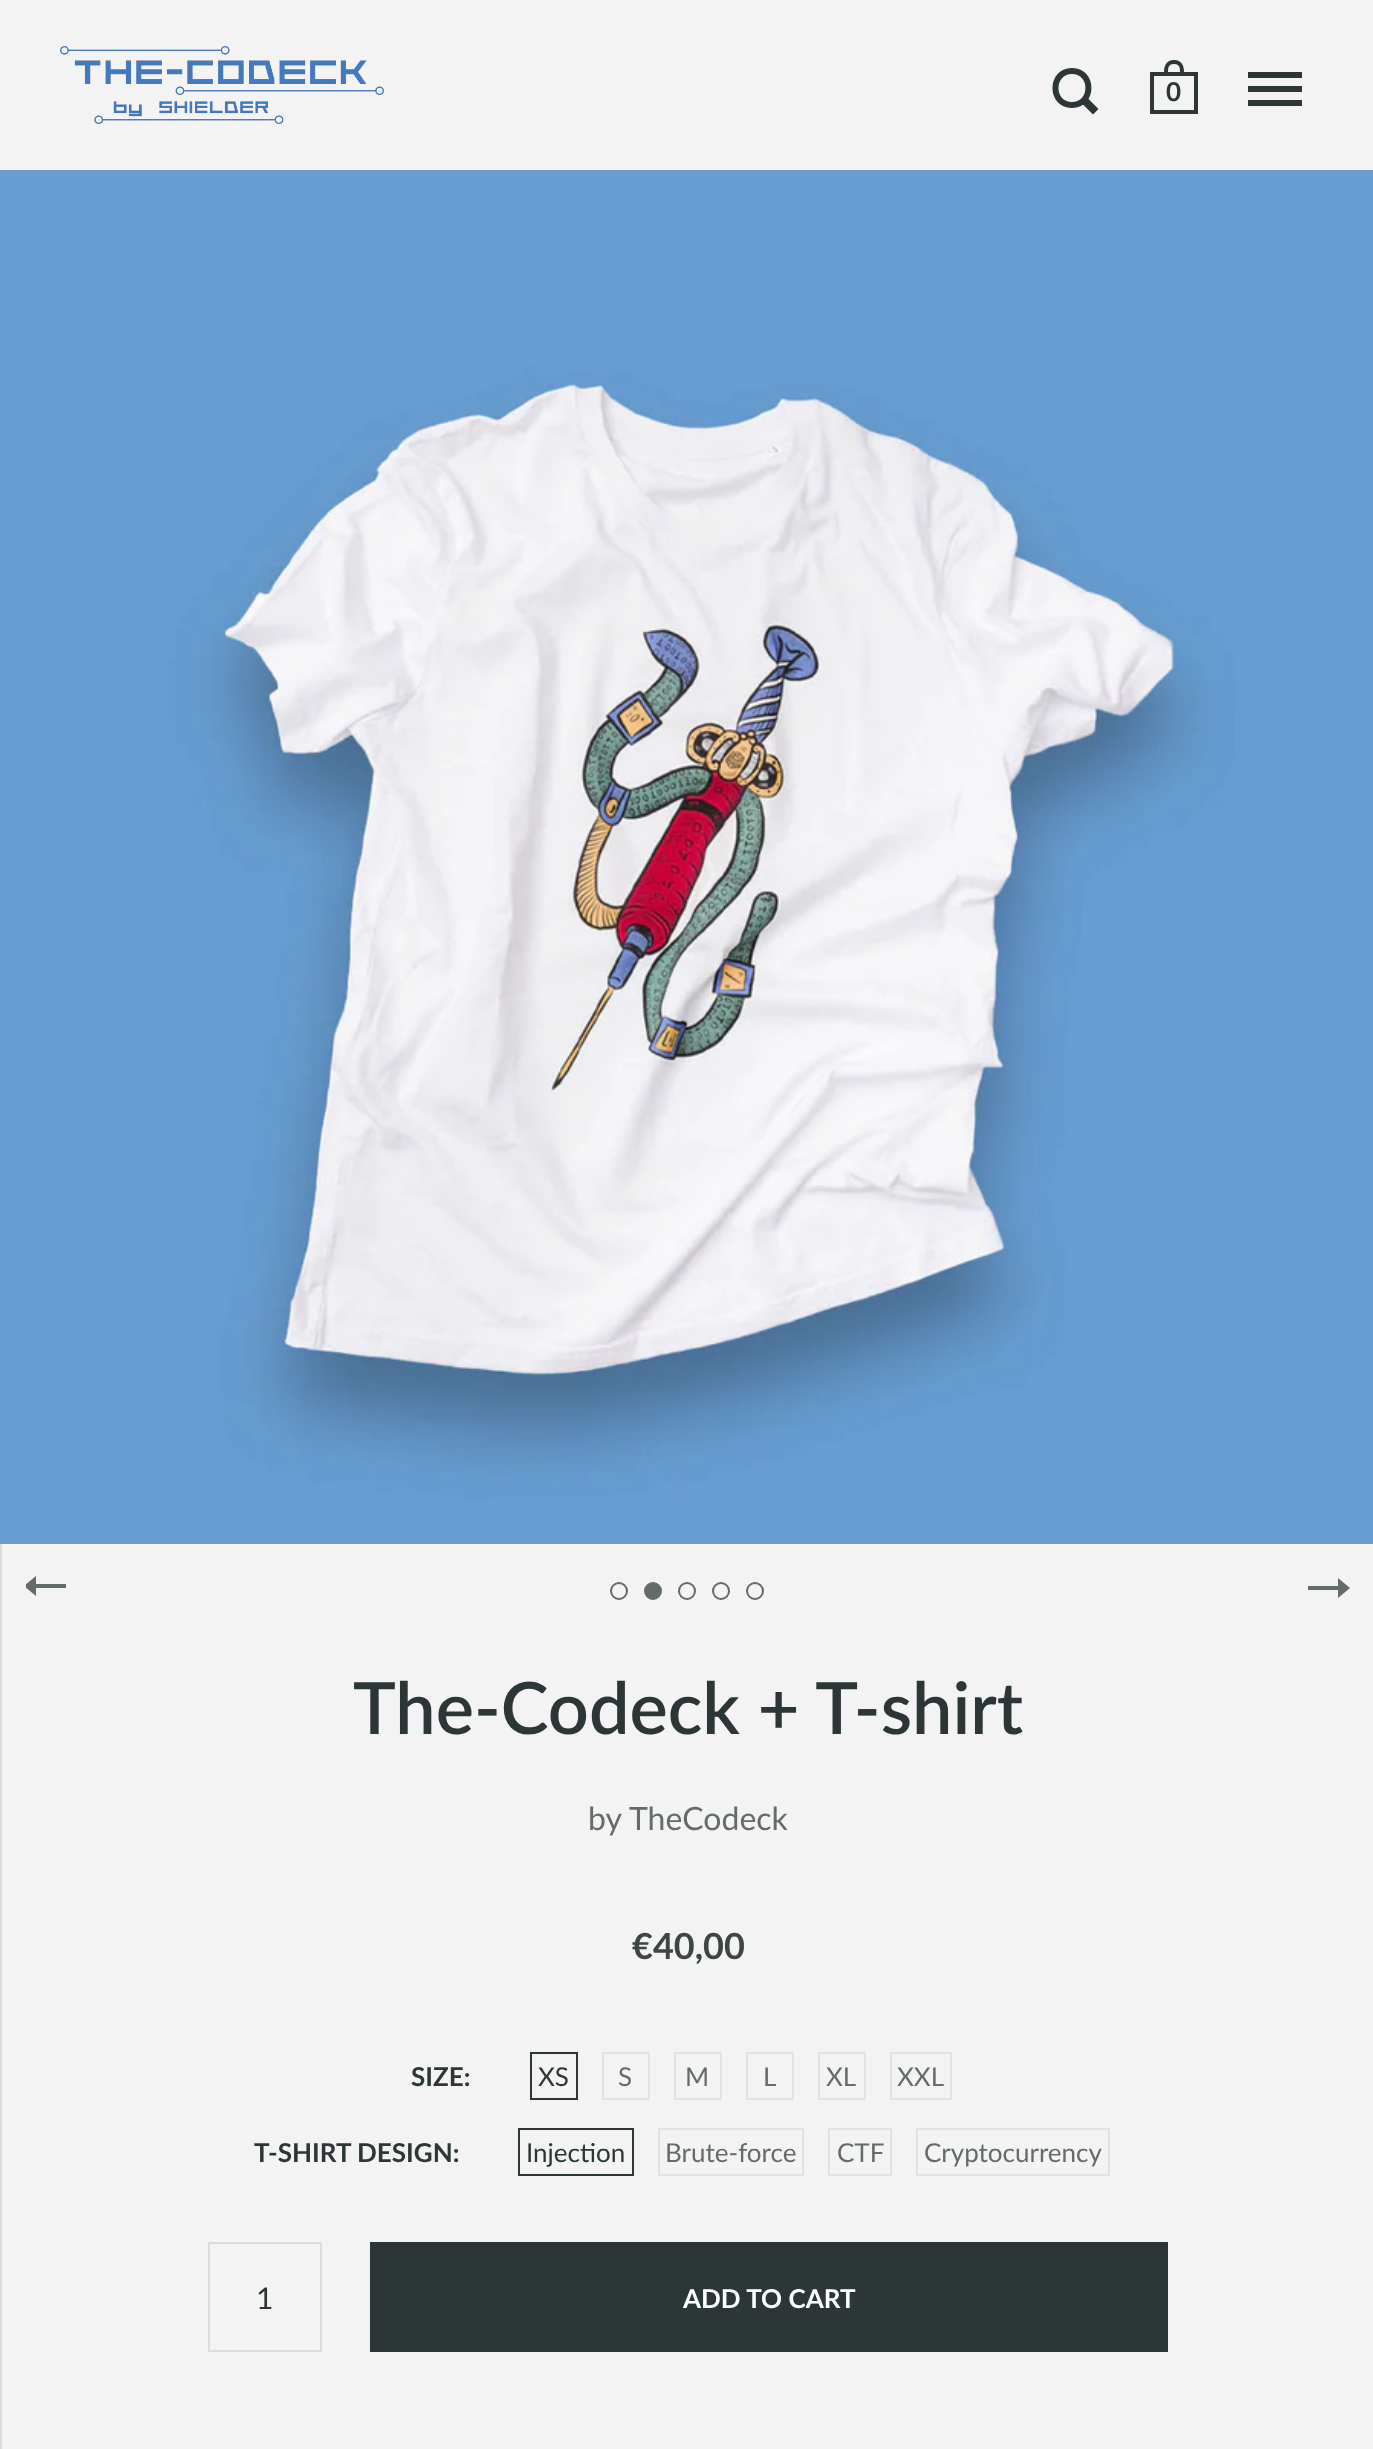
<?xml version="1.0" encoding="UTF-8"?>
<svg xmlns="http://www.w3.org/2000/svg" xmlns:xlink="http://www.w3.org/1999/xlink" width="1373" height="2449">
  <defs>
    <clipPath id="clip1"><rect x="26" y="1576" width="42" height="20" /></clipPath>
  </defs>
  <rect width="100%" height="100%" fill="#f3f3f3" />
  <image x="60" y="46" width="324" height="78" xlink:href="image1.png" />
  <path d="M 1072 68 c -26 0 -26 40 0 40 c 26 0 26 -40 0 -40 z m 0 34 c -18 0 -18 -28 0 -28 c 18 0 18 28 0 28 z" fill="#2d3636" />
  <path d="M 1081.5 103 l 5.5 -5.5 l 11.5 11.5 l -5.5 5.5 z" fill="#2d3636" />
  <image x="1150" y="60" width="48" height="54" xlink:href="image2.png" />
  <rect x="1248" y="86" width="54" height="6" fill="#2d3636" />
  <rect x="1248" y="72" width="54" height="6" fill="#2d3636" />
  <rect x="1248" y="100" width="54" height="6" fill="#2d3636" />
  <image x="0" y="170" width="1373" height="1374" xlink:href="image3.png" />
  <g clip-path="url(#clip1)">
    <path d="M 24 1586 l 12 -10 v 8 h 30 v 4 h -30 v 8 z" fill="#646b6b" />
  </g>
  <circle cx="619" cy="1591" r="8" fill="none" stroke="#646b6b" stroke-width="2" />
  <circle cx="653" cy="1591" r="8" fill="#646b6b" stroke="#646b6b" stroke-width="2" />
  <circle cx="687" cy="1591" r="8" fill="none" stroke="#646b6b" stroke-width="2" />
  <circle cx="721" cy="1591" r="8" fill="none" stroke="#646b6b" stroke-width="2" />
  <circle cx="755" cy="1591" r="8" fill="none" stroke="#646b6b" stroke-width="2" />
  <path d="M 1350 1588 l -12 10 v -8 h -30 v -4 h 30 v -8 z" fill="#646b6b" />
  <rect y="1544" width="2" height="905" fill="#dcdcdc" />
  <rect x="531" y="2053" width="46" height="46" fill="none" stroke="#2d3636" stroke-width="2" />
  <rect x="603" y="2053" width="46" height="46" fill="none" stroke="#e2e2e2" stroke-width="2" />
  <rect x="675" y="2053" width="46" height="46" fill="none" stroke="#e2e2e2" stroke-width="2" />
  <rect x="747" y="2053" width="46" height="46" fill="none" stroke="#e2e2e2" stroke-width="2" />
  <rect x="819" y="2053" width="46" height="46" fill="none" stroke="#e2e2e2" stroke-width="2" />
  <rect x="891" y="2053" width="60" height="46" fill="none" stroke="#e2e2e2" stroke-width="2" />
  <rect x="519" y="2129" width="114" height="46" fill="none" stroke="#2d3636" stroke-width="2" />
  <rect x="659" y="2129" width="144" height="46" fill="none" stroke="#e2e2e2" stroke-width="2" />
  <rect x="829" y="2129" width="62" height="46" fill="none" stroke="#e2e2e2" stroke-width="2" />
  <rect x="917" y="2129" width="192" height="46" fill="none" stroke="#e2e2e2" stroke-width="2" />
  <rect x="209" y="2243" width="112" height="108" fill="none" stroke="#dbdcdc" stroke-width="2" />
  <rect x="370" y="2242" width="798" height="110" fill="#2d3636" />
  <text x="1166" y="101" style="font-family: Lato; font-size: 26px; font-weight: bold; fill: #2d3636">0</text>
  <text x="353" y="1734" style="font-family: Lato; font-size: 72px; font-weight: 600; fill: #2d3636">The-Codeck + T-shirt</text>
  <text x="588" y="1830" style="font-family: Lato; font-size: 32px; fill: #646b6b">by</text>
  <text x="629" y="1830" style="font-family: Lato; font-size: 32px; fill: #646b6b">TheCodeck</text>
  <text x="632" y="1959" style="font-family: Lato; font-size: 36px; font-weight: bold; fill: #3d4545">€40,00</text>
  <text x="411" y="2086" style="font-family: Lato; font-size: 26px; font-weight: bold; fill: #2d3636">SIZE:</text>
  <text x="538" y="2086" style="font-family: Lato; font-size: 26px; fill: #2d3636">XS</text>
  <text x="618" y="2086" style="font-family: Lato; font-size: 26px; fill: #646b6b">S</text>
  <text x="685" y="2086" style="font-family: Lato; font-size: 26px; fill: #646b6b">M</text>
  <text x="763" y="2086" style="font-family: Lato; font-size: 26px; fill: #646b6b">L</text>
  <text x="826" y="2086" style="font-family: Lato; font-size: 26px; fill: #646b6b">XL</text>
  <text x="897" y="2086" style="font-family: Lato; font-size: 26px; fill: #646b6b">XXL</text>
  <text x="254" y="2162" style="font-family: Lato; font-size: 26px; font-weight: bold; fill: #2d3636">T-SHIRT DESIGN:</text>
  <text x="526" y="2162" style="font-family: Lato; font-size: 26px; fill: #2d3636">Injection</text>
  <text x="665" y="2162" style="font-family: Lato; font-size: 26px; fill: #646b6b">Brute-force</text>
  <text x="837" y="2162" style="font-family: Lato; font-size: 26px; fill: #646b6b">CTF</text>
  <text x="924" y="2162" style="font-family: Lato; font-size: 26px; fill: #646b6b">Cryptocurrency</text>
  <text x="256" y="2309" style="font-family: Lato; font-size: 30px; fill: #2d3636">1</text>
  <text x="683" y="2308" style="font-family: Lato; font-size: 26px; font-weight: bold; fill: #ffffff">ADD TO CART</text>
</svg>
